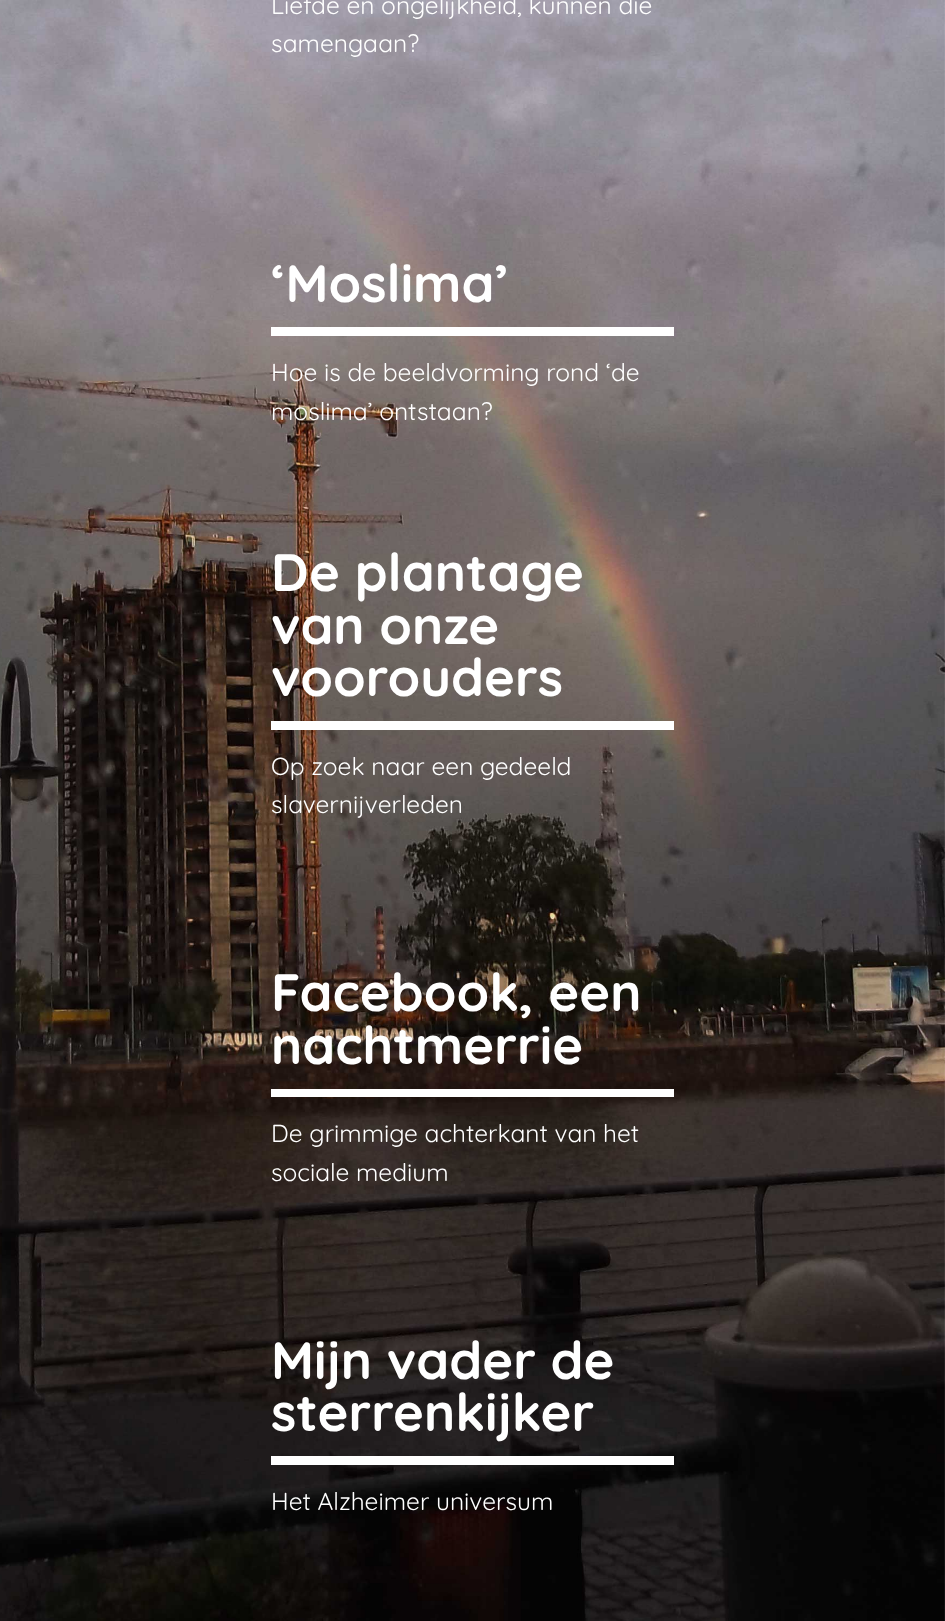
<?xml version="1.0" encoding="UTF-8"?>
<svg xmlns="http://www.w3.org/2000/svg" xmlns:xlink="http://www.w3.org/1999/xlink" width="945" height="1621">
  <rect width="100%" height="100%" fill="#ffffff" />
  <image x="0" y="0" width="945" height="1621" xlink:href="image1.png" />
  <rect x="271" y="327" width="403" height="9" fill="#ffffff" />
  <rect x="271" y="721" width="403" height="9" fill="#ffffff" />
  <rect x="271" y="1089" width="403" height="8" fill="#ffffff" />
  <rect x="271" y="1456" width="403" height="9" fill="#ffffff" />
  <text x="271" y="14" style="font-family: Quicksand; font-size: 24.5px; fill: #ffffff">Liefde en ongelijkheid, kunnen die</text>
  <text x="271" y="52" style="font-family: Quicksand; font-size: 24.5px; fill: #ffffff">samengaan?</text>
  <text x="271" y="302" style="font-family: Quicksand; font-size: 52.5px; font-weight: bold; fill: #ffffff">‘Moslima’</text>
  <text x="271" y="381" style="font-family: Quicksand; font-size: 24.5px; fill: #ffffff">Hoe is de beeldvorming rond ‘de</text>
  <text x="271" y="420" style="font-family: Quicksand; font-size: 24.5px; fill: #ffffff">moslima’ ontstaan?</text>
  <text x="271" y="591" style="font-family: Quicksand; font-size: 52.5px; font-weight: bold; fill: #ffffff">De plantage</text>
  <text x="271" y="644" style="font-family: Quicksand; font-size: 52.5px; font-weight: bold; fill: #ffffff">van onze</text>
  <text x="271" y="696" style="font-family: Quicksand; font-size: 52.5px; font-weight: bold; fill: #ffffff">voorouders</text>
  <text x="271" y="775" style="font-family: Quicksand; font-size: 24.5px; fill: #ffffff">Op zoek naar een gedeeld</text>
  <text x="271" y="813" style="font-family: Quicksand; font-size: 24.5px; fill: #ffffff">slavernijverleden</text>
  <text x="271" y="1011" style="font-family: Quicksand; font-size: 52.5px; font-weight: bold; fill: #ffffff">Facebook, een</text>
  <text x="271" y="1064" style="font-family: Quicksand; font-size: 52.5px; font-weight: bold; fill: #ffffff">nachtmerrie</text>
  <text x="271" y="1142" style="font-family: Quicksand; font-size: 24.5px; fill: #ffffff">De grimmige achterkant van het</text>
  <text x="271" y="1181" style="font-family: Quicksand; font-size: 24.5px; fill: #ffffff">sociale medium</text>
  <text x="271" y="1379" style="font-family: Quicksand; font-size: 52.5px; font-weight: bold; fill: #ffffff">Mijn vader de</text>
  <text x="271" y="1431" style="font-family: Quicksand; font-size: 52.5px; font-weight: bold; fill: #ffffff">sterrenkijker</text>
  <text x="271" y="1510" style="font-family: Quicksand; font-size: 24.5px; fill: #ffffff">Het Alzheimer universum</text>
</svg>
